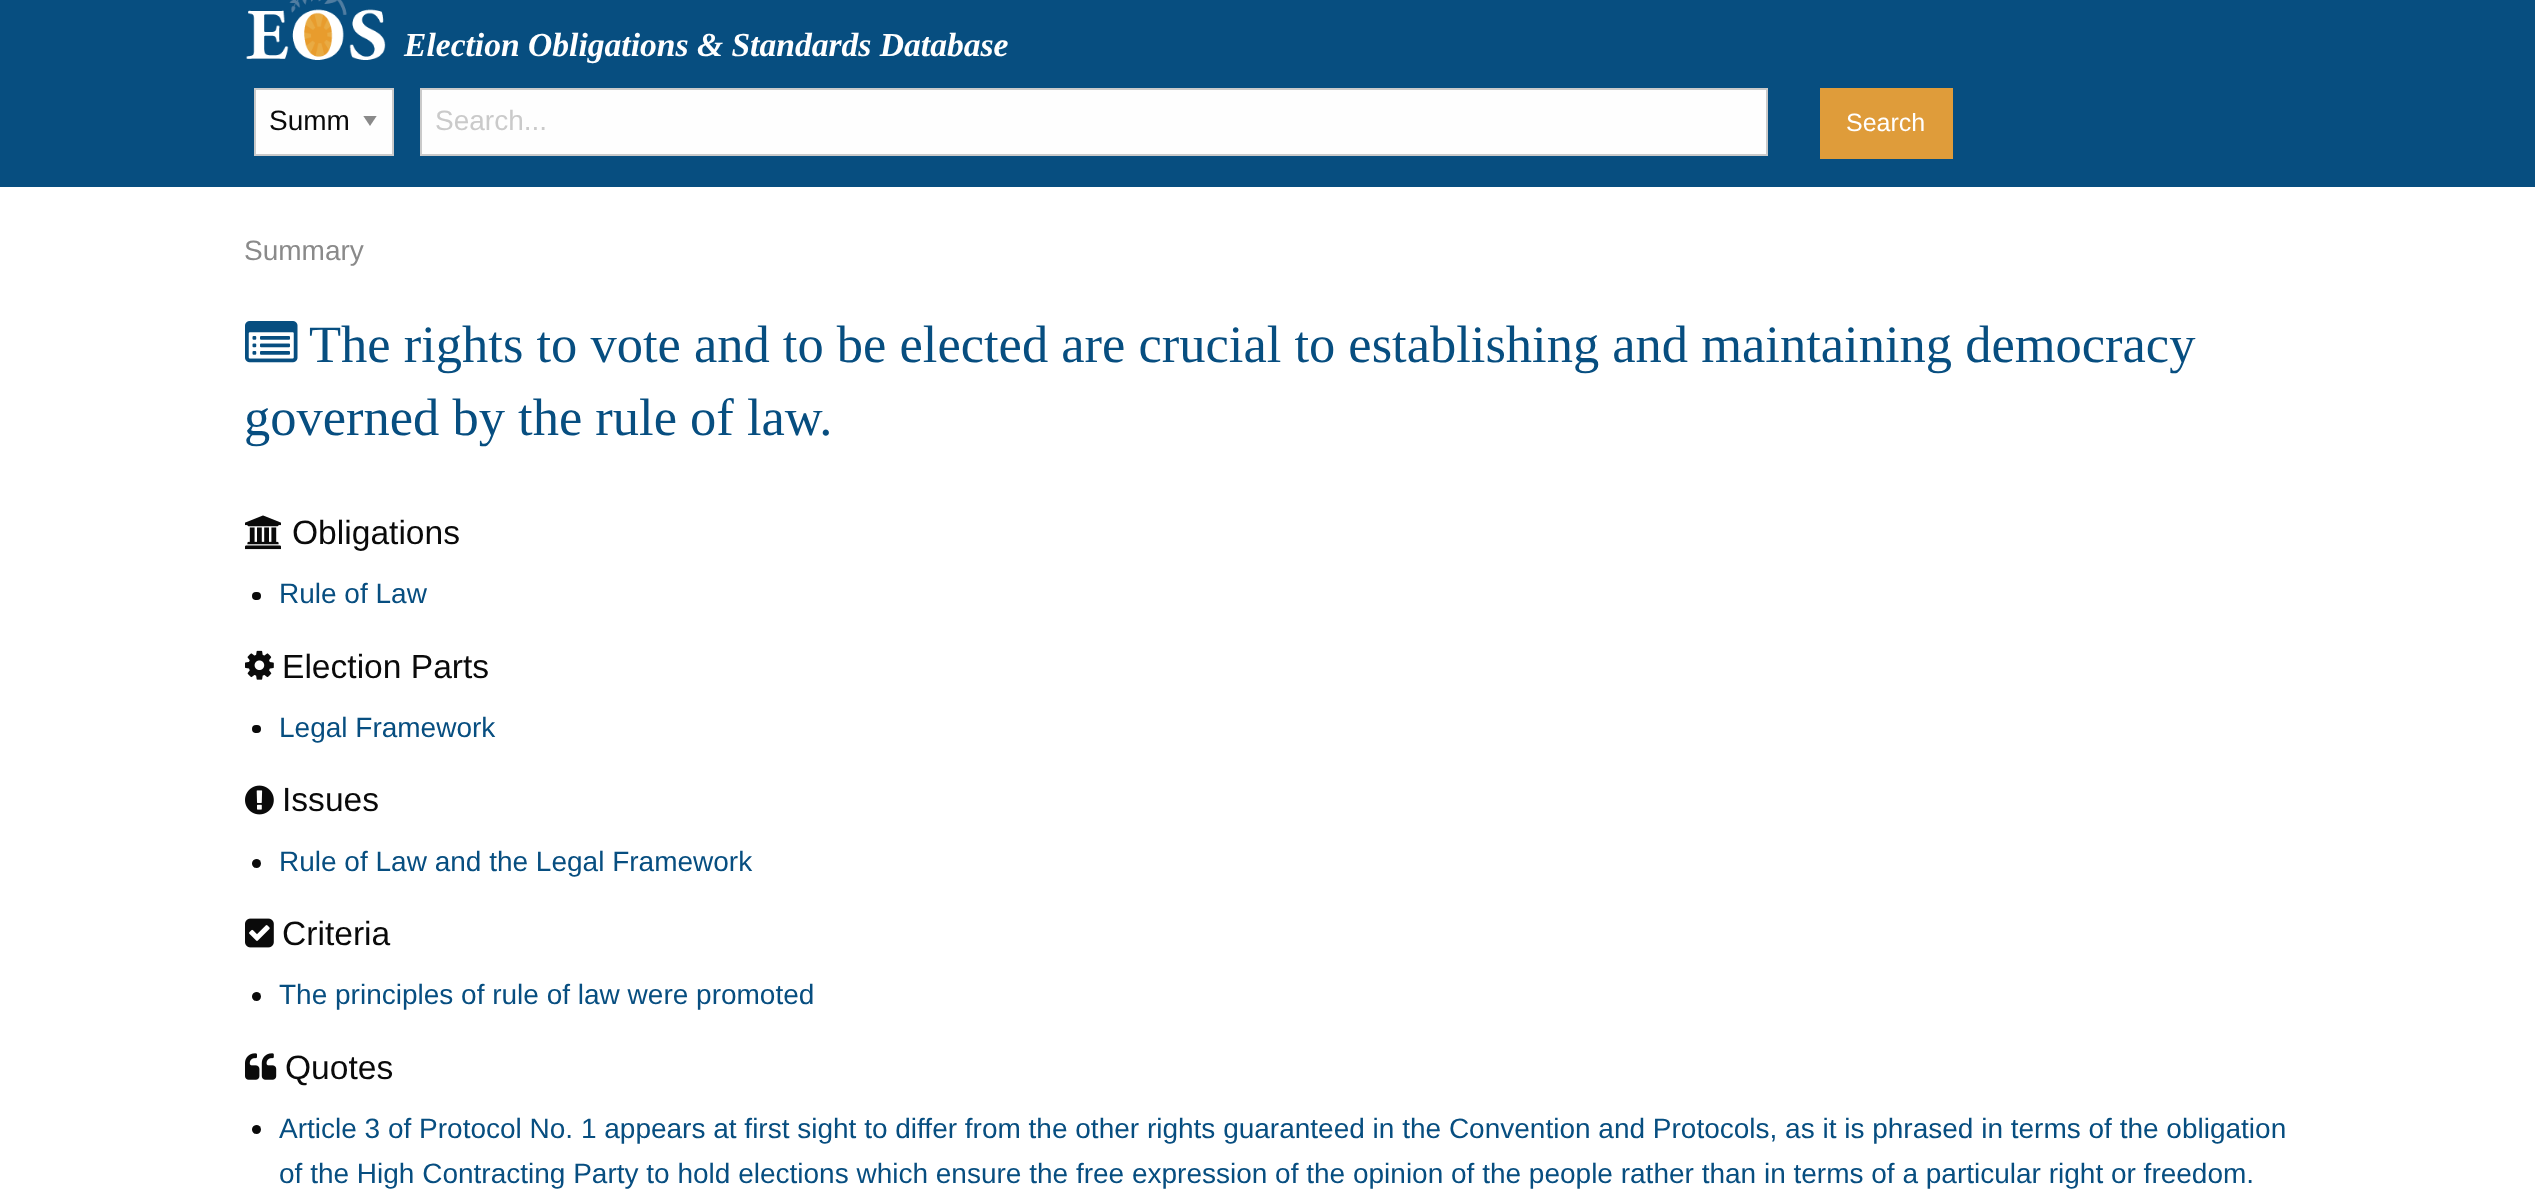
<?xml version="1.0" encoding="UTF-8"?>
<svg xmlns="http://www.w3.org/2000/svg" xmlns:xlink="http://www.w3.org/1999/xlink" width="2535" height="1204">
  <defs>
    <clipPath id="clip1"><rect x="362" y="116" width="16" height="10" /></clipPath>
  </defs>
  <rect width="100%" height="100%" fill="#ffffff" />
  <rect width="2535" height="187" fill="#074e80" />
  <image x="246" y="0" width="140" height="60" xlink:href="image1.png" />
  <rect x="256" y="90" width="136" height="64" fill="#fefefe" />
  <g clip-path="url(#clip1)">
    <path d="M 363 115.5 h 14 l -7 10.5 z" fill="#8a8a8a" />
  </g>
  <rect x="255" y="89" width="138" height="66" fill="none" stroke="#cacaca" stroke-width="2" />
  <rect x="421" y="89" width="1346" height="66" fill="#fefefe" stroke="#cacaca" stroke-width="2" />
  <rect x="1820" y="88" width="133" height="71" fill="#df9c3a" />
  <image x="245" y="321" width="53" height="42" xlink:href="image2.png" />
  <image x="245" y="515" width="36" height="35" xlink:href="image3.png" />
  <rect x="252" y="592" width="9" height="8" rx="4" fill="#0a0a0a" />
  <image x="245" y="650" width="29" height="30" xlink:href="image4.png" />
  <rect x="252" y="725" width="9" height="8" rx="4" fill="#0a0a0a" />
  <image x="245" y="785" width="29" height="30" xlink:href="image5.png" />
  <circle cx="256.5" cy="863.5" r="4.5" fill="#0a0a0a" />
  <image x="245" y="918" width="29" height="30" xlink:href="image6.png" />
  <circle cx="256.5" cy="996.5" r="4.5" fill="#0a0a0a" />
  <image x="245" y="1053" width="32" height="27" xlink:href="image7.png" />
  <circle cx="256.5" cy="1129.5" r="4.5" fill="#0a0a0a" />
  <text x="404" y="56" style="font-family: Liberation Serif; font-size: 33.6px; font-weight: bold; font-style: italic; fill: #ffffff">Election Obligations &amp; Standards Database</text>
  <text x="269" y="130" style="font-family: Liberation Sans; font-size: 28px; fill: #0a0a0a">Summ</text>
  <text x="435" y="130" style="font-family: Liberation Sans; font-size: 28px; fill: #cacaca">Search...</text>
  <text x="1846" y="131" style="font-family: Liberation Sans; font-size: 25px; fill: #ffffff">Search</text>
  <text x="244" y="260" style="font-family: Liberation Sans; font-size: 28px; fill: #8a8a8a">Summary</text>
  <text x="309" y="362" style="font-family: Liberation Serif; font-size: 52.5px; fill: #074e80">The rights to vote and to be elected are crucial to establishing and maintaining democracy</text>
  <text x="244" y="435" style="font-family: Liberation Serif; font-size: 52.5px; fill: #074e80">governed by the rule of law.</text>
  <text x="292" y="544" style="font-family: Liberation Sans; font-size: 33.6px; fill: #0a0a0a">Obligations</text>
  <text x="279" y="603" style="font-family: Liberation Sans; font-size: 28px; fill: #074e80">Rule of Law</text>
  <text x="282" y="678" style="font-family: Liberation Sans; font-size: 33.6px; fill: #0a0a0a">Election Parts</text>
  <text x="279" y="737" style="font-family: Liberation Sans; font-size: 28px; fill: #074e80">Legal Framework</text>
  <text x="282" y="811" style="font-family: Liberation Sans; font-size: 33.6px; fill: #0a0a0a">Issues</text>
  <text x="279" y="871" style="font-family: Liberation Sans; font-size: 28px; fill: #074e80">Rule of Law and the Legal Framework</text>
  <text x="282" y="945" style="font-family: Liberation Sans; font-size: 33.6px; fill: #0a0a0a">Criteria</text>
  <text x="279" y="1004" style="font-family: Liberation Sans; font-size: 28px; fill: #074e80">The principles of rule of law were promoted</text>
  <text x="285" y="1079" style="font-family: Liberation Sans; font-size: 33.6px; fill: #0a0a0a">Quotes</text>
  <text x="279" y="1138" style="font-family: Liberation Sans; font-size: 28px; fill: #074e80">Article 3 of Protocol No. 1 appears at first sight to differ from the other rights guaranteed in the Convention and Protocols, as it is phrased in terms of the obligation</text>
  <text x="279" y="1183" style="font-family: Liberation Sans; font-size: 28px; fill: #074e80">of the High Contracting Party to hold elections which ensure the free expression of the opinion of the people rather than in terms of a particular right or freedom.</text>
</svg>
